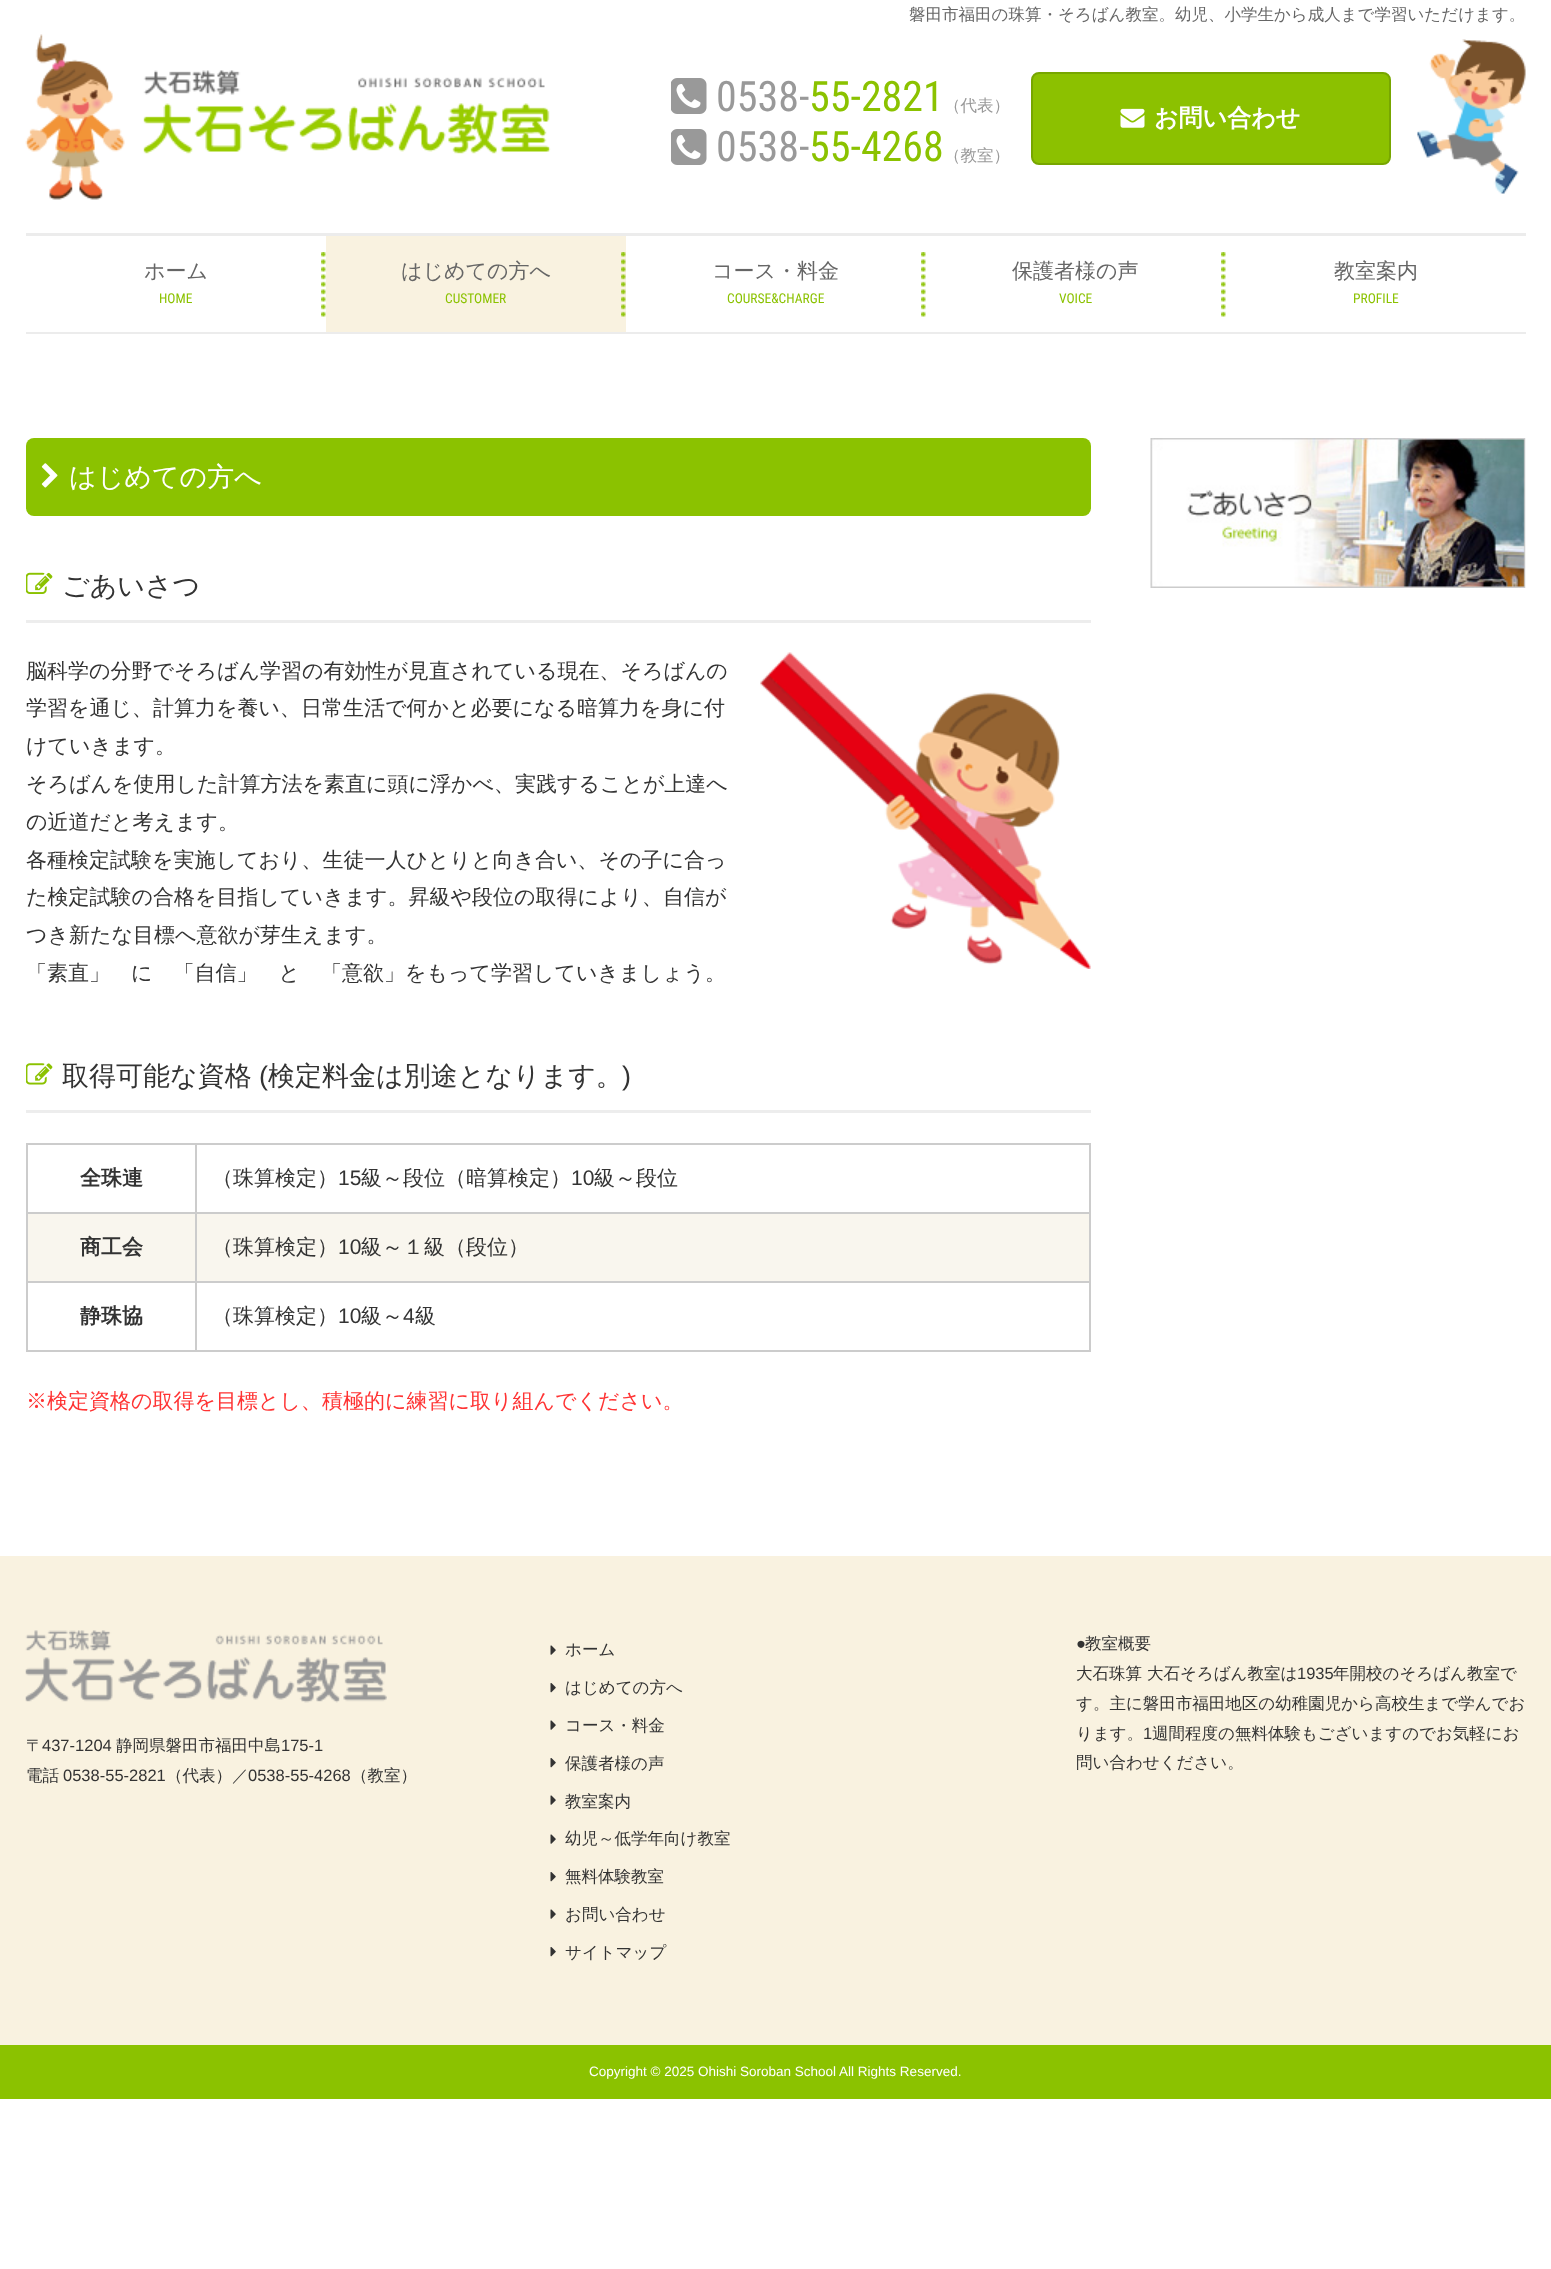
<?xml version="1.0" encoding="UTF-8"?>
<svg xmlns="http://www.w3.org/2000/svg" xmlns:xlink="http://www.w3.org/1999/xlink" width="1551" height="2269">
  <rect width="100%" height="100%" fill="#ffffff" />
  <image x="1417" y="39" width="109" height="155" xlink:href="image1.png" />
  <image x="25" y="34" width="526" height="166" xlink:href="image2.png" />
  <image x="671" y="78" width="36" height="36" xlink:href="image3.png" />
  <image x="671" y="129" width="36" height="36" xlink:href="image3.png" />
  <rect x="1032" y="73" width="358" height="91" rx="7" fill="#8cc100" stroke="#77a600" stroke-width="2" />
  <image x="1120" y="108" width="25" height="20" xlink:href="image4.png" />
  <rect x="26" y="233" width="1500" height="3" fill="#ececec" />
  <rect x="26" y="332" width="1500" height="2" fill="#ececec" />
  <image x="321" y="252" width="5" height="65" xlink:href="image5.png" />
  <rect x="326" y="236" width="300" height="96" fill="#f9f2e0" />
  <image x="621" y="252" width="5" height="65" xlink:href="image6.png" />
  <image x="921" y="252" width="5" height="65" xlink:href="image7.png" />
  <image x="1221" y="252" width="5" height="65" xlink:href="image5.png" />
  <rect x="26" y="438" width="1065" height="78" rx="8" fill="#8bc200" />
  <image x="41" y="463" width="17" height="25" xlink:href="image8.png" />
  <rect x="26" y="620" width="1065" height="3" fill="#ededed" />
  <image x="26" y="572" width="27" height="22" xlink:href="image9.png" />
  <image x="760" y="652" width="331" height="317" xlink:href="image10.png" />
  <rect x="26" y="1110" width="1065" height="3" fill="#ededed" />
  <image x="26" y="1063" width="27" height="22" xlink:href="image11.png" />
  <rect x="26" y="1143" width="1065" height="2" fill="#cccccc" />
  <rect x="1089" y="1143" width="2" height="209" fill="#cccccc" />
  <rect x="26" y="1350" width="1065" height="2" fill="#cccccc" />
  <rect x="26" y="1143" width="2" height="209" fill="#cccccc" />
  <rect x="28" y="1214" width="1061" height="67" fill="#f9f6ee" />
  <rect x="195" y="1281" width="2" height="71" fill="#cccccc" />
  <rect x="195" y="1281" width="896" height="2" fill="#cccccc" />
  <rect x="195" y="1212" width="2" height="71" fill="#cccccc" />
  <rect x="195" y="1212" width="896" height="2" fill="#cccccc" />
  <rect x="195" y="1143" width="2" height="71" fill="#cccccc" />
  <rect x="26" y="1212" width="171" height="2" fill="#cccccc" />
  <rect x="26" y="1281" width="171" height="2" fill="#cccccc" />
  <image x="1150" y="438" width="376" height="150" xlink:href="image12.png" />
  <rect y="1556" width="1551" height="489" fill="#f9f2e0" />
  <image x="25" y="1630" width="362" height="73" xlink:href="image13.png" />
  <image x="550" y="1645" width="6" height="10" xlink:href="image14.png" />
  <image x="550" y="1683" width="6" height="10" xlink:href="image15.png" />
  <image x="550" y="1720" width="6" height="10" xlink:href="image14.png" />
  <image x="550" y="1758" width="6" height="10" xlink:href="image15.png" />
  <image x="550" y="1795" width="6" height="10" xlink:href="image14.png" />
  <image x="550" y="1834" width="6" height="10" xlink:href="image14.png" />
  <image x="550" y="1872" width="6" height="10" xlink:href="image15.png" />
  <image x="550" y="1909" width="6" height="10" xlink:href="image14.png" />
  <image x="550" y="1947" width="6" height="10" xlink:href="image15.png" />
  <rect y="2045" width="1551" height="54" fill="#8bc200" />
  <text x="909" y="20" style="font-family: WenQuanYi Zen Hei; font-size: 16.5px; font-weight: 500; fill: #666666">磐田市福田の珠算・そろばん教室。幼児、小学生から成人まで学習いただけます。</text>
  <text x="716" y="111" style="font-family: Roboto Condensed; font-size: 42px; fill: #999999">0538-</text>
  <text x="809" y="111" style="font-family: Roboto Condensed; font-size: 42px; fill: #8bc200">55-2821</text>
  <text x="944" y="111" style="font-family: WenQuanYi Zen Hei; font-size: 16.5px; font-weight: 500; fill: #999999">（代表）</text>
  <text x="716" y="161" style="font-family: Roboto Condensed; font-size: 42px; fill: #999999">0538-</text>
  <text x="809" y="161" style="font-family: Roboto Condensed; font-size: 42px; fill: #8bc200">55-4268</text>
  <text x="944" y="161" style="font-family: WenQuanYi Zen Hei; font-size: 16.5px; font-weight: 500; fill: #999999">（教室）</text>
  <text x="1154" y="126" style="font-family: WenQuanYi Zen Hei; font-size: 24px; font-weight: bold; fill: #ffffff">お問い合わせ</text>
  <text x="144" y="278" style="font-family: WenQuanYi Zen Hei; font-size: 21px; font-weight: 500; fill: #666666">ホーム</text>
  <text x="159" y="303" style="font-family: Roboto Condensed; font-size: 13.5px; fill: #8bc200">HOME</text>
  <text x="401" y="278" style="font-family: WenQuanYi Zen Hei; font-size: 21px; font-weight: 500; fill: #666666">はじめての方へ</text>
  <text x="445" y="303" style="font-family: Roboto Condensed; font-size: 13.5px; fill: #8bc200">CUSTOMER</text>
  <text x="712" y="278" style="font-family: WenQuanYi Zen Hei; font-size: 21px; font-weight: 500; fill: #666666">コース・料金</text>
  <text x="727" y="303" style="font-family: Roboto Condensed; font-size: 13.5px; fill: #8bc200">COURSE&amp;CHARGE</text>
  <text x="1012" y="278" style="font-family: WenQuanYi Zen Hei; font-size: 21px; font-weight: 500; fill: #666666">保護者様の声</text>
  <text x="1059" y="303" style="font-family: Roboto Condensed; font-size: 13.5px; fill: #8bc200">VOICE</text>
  <text x="1334" y="278" style="font-family: WenQuanYi Zen Hei; font-size: 21px; font-weight: 500; fill: #666666">教室案内</text>
  <text x="1353" y="303" style="font-family: Roboto Condensed; font-size: 13.5px; fill: #8bc200">PROFILE</text>
  <text x="69" y="486" style="font-family: WenQuanYi Zen Hei; font-size: 27px; font-weight: 500; fill: #ffffff">はじめての方へ</text>
  <text x="62" y="595" style="font-family: WenQuanYi Zen Hei; font-size: 27px; font-weight: 500; fill: #333333">ごあいさつ</text>
  <text x="26" y="678" style="font-family: WenQuanYi Zen Hei; font-size: 21px; font-weight: 500; fill: #333333">脳科学の分野でそろばん学習の有効性が見直されている現在、そろばんの</text>
  <text x="26" y="715" style="font-family: WenQuanYi Zen Hei; font-size: 21px; font-weight: 500; fill: #333333">学習を通じ、計算力を養い、日常生活で何かと必要になる暗算力を身に付</text>
  <text x="26" y="753" style="font-family: WenQuanYi Zen Hei; font-size: 21px; font-weight: 500; fill: #333333">けていきます。</text>
  <text x="26" y="791" style="font-family: WenQuanYi Zen Hei; font-size: 21px; font-weight: 500; fill: #333333">そろばんを使用した計算方法を素直に頭に浮かべ、実践することが上達へ</text>
  <text x="26" y="829" style="font-family: WenQuanYi Zen Hei; font-size: 21px; font-weight: 500; fill: #333333">の近道だと考えます。</text>
  <text x="26" y="867" style="font-family: WenQuanYi Zen Hei; font-size: 21px; font-weight: 500; fill: #333333">各種検定試験を実施しており、生徒一人ひとりと向き合い、その子に合っ</text>
  <text x="26" y="904" style="font-family: WenQuanYi Zen Hei; font-size: 21px; font-weight: 500; fill: #333333">た検定試験の合格を目指していきます。昇級や段位の取得により、自信が</text>
  <text x="26" y="942" style="font-family: WenQuanYi Zen Hei; font-size: 21px; font-weight: 500; fill: #333333">つき新たな目標へ意欲が芽生えます。</text>
  <text x="26" y="980" style="font-family: WenQuanYi Zen Hei; font-size: 21px; font-weight: 500; fill: #333333">「素直」　に　「自信」　と　「意欲」をもって学習していきましょう。</text>
  <text x="62" y="1085" style="font-family: WenQuanYi Zen Hei; font-size: 27px; font-weight: 500; fill: #333333">取得可能な資格</text>
  <text x="259" y="1085" style="font-family: Liberation Sans; font-size: 27px; fill: #333333">(</text>
  <text x="268" y="1085" style="font-family: WenQuanYi Zen Hei; font-size: 27px; font-weight: 500; fill: #333333">検定料金は別途となります。</text>
  <text x="622" y="1085" style="font-family: Liberation Sans; font-size: 27px; fill: #333333">)</text>
  <text x="80" y="1185" style="font-family: WenQuanYi Zen Hei; font-size: 21px; font-weight: bold; fill: #333333">全珠連</text>
  <text x="212" y="1185" style="font-family: WenQuanYi Zen Hei; font-size: 21px; font-weight: 500; fill: #333333">（珠算検定）</text>
  <text x="338" y="1185" style="font-family: Liberation Sans; font-size: 21px; fill: #333333">15</text>
  <text x="361" y="1185" style="font-family: WenQuanYi Zen Hei; font-size: 21px; font-weight: 500; fill: #333333">級～段位（暗算検定）</text>
  <text x="571" y="1185" style="font-family: Liberation Sans; font-size: 21px; fill: #333333">10</text>
  <text x="594" y="1185" style="font-family: WenQuanYi Zen Hei; font-size: 21px; font-weight: 500; fill: #333333">級～段位</text>
  <text x="80" y="1254" style="font-family: WenQuanYi Zen Hei; font-size: 21px; font-weight: bold; fill: #333333">商工会</text>
  <text x="212" y="1254" style="font-family: WenQuanYi Zen Hei; font-size: 21px; font-weight: 500; fill: #333333">（珠算検定）</text>
  <text x="338" y="1254" style="font-family: Liberation Sans; font-size: 21px; fill: #333333">10</text>
  <text x="361" y="1254" style="font-family: WenQuanYi Zen Hei; font-size: 21px; font-weight: 500; fill: #333333">級～１級（段位）</text>
  <text x="80" y="1323" style="font-family: WenQuanYi Zen Hei; font-size: 21px; font-weight: bold; fill: #333333">静珠協</text>
  <text x="212" y="1323" style="font-family: WenQuanYi Zen Hei; font-size: 21px; font-weight: 500; fill: #333333">（珠算検定）</text>
  <text x="338" y="1323" style="font-family: Liberation Sans; font-size: 21px; fill: #333333">10</text>
  <text x="361" y="1323" style="font-family: WenQuanYi Zen Hei; font-size: 21px; font-weight: 500; fill: #333333">級～</text>
  <text x="403" y="1323" style="font-family: Liberation Sans; font-size: 21px; fill: #333333">4</text>
  <text x="415" y="1323" style="font-family: WenQuanYi Zen Hei; font-size: 21px; font-weight: 500; fill: #333333">級</text>
  <text x="26" y="1408" style="font-family: WenQuanYi Zen Hei; font-size: 21px; font-weight: 500; fill: #ff3333">※検定資格の取得を目標とし、積極的に練習に取り組んでください。</text>
  <text x="26" y="1751" style="font-family: WenQuanYi Zen Hei; font-size: 16.5px; font-weight: 500; fill: #333333">〒</text>
  <text x="42" y="1751" style="font-family: Liberation Sans; font-size: 16.5px; fill: #333333">437-1204</text>
  <text x="116" y="1751" style="font-family: WenQuanYi Zen Hei; font-size: 16.5px; font-weight: 500; fill: #333333">静岡県磐田市福田中島</text>
  <text x="281" y="1751" style="font-family: Liberation Sans; font-size: 16.5px; fill: #333333">175-1</text>
  <text x="26" y="1781" style="font-family: WenQuanYi Zen Hei; font-size: 16.5px; font-weight: 500; fill: #333333">電話</text>
  <text x="63" y="1781" style="font-family: Liberation Sans; font-size: 16.5px; fill: #333333">0538-55-2821</text>
  <text x="166" y="1781" style="font-family: WenQuanYi Zen Hei; font-size: 16.5px; font-weight: 500; fill: #333333">（代表）／</text>
  <text x="248" y="1781" style="font-family: Liberation Sans; font-size: 16.5px; fill: #333333">0538-55-4268</text>
  <text x="351" y="1781" style="font-family: WenQuanYi Zen Hei; font-size: 16.5px; font-weight: 500; fill: #333333">（教室）</text>
  <text x="565" y="1655" style="font-family: WenQuanYi Zen Hei; font-size: 16.5px; font-weight: 500; fill: #333333">ホーム</text>
  <text x="565" y="1693" style="font-family: WenQuanYi Zen Hei; font-size: 16.5px; font-weight: 500; fill: #333333">はじめての方へ</text>
  <text x="565" y="1731" style="font-family: WenQuanYi Zen Hei; font-size: 16.5px; font-weight: 500; fill: #333333">コース・料金</text>
  <text x="565" y="1769" style="font-family: WenQuanYi Zen Hei; font-size: 16.5px; font-weight: 500; fill: #333333">保護者様の声</text>
  <text x="565" y="1807" style="font-family: WenQuanYi Zen Hei; font-size: 16.5px; font-weight: 500; fill: #333333">教室案内</text>
  <text x="565" y="1844" style="font-family: WenQuanYi Zen Hei; font-size: 16.5px; font-weight: 500; fill: #333333">幼児～低学年向け教室</text>
  <text x="565" y="1882" style="font-family: WenQuanYi Zen Hei; font-size: 16.5px; font-weight: 500; fill: #333333">無料体験教室</text>
  <text x="565" y="1920" style="font-family: WenQuanYi Zen Hei; font-size: 16.5px; font-weight: 500; fill: #333333">お問い合わせ</text>
  <text x="565" y="1958" style="font-family: WenQuanYi Zen Hei; font-size: 16.5px; font-weight: 500; fill: #333333">サイトマップ</text>
  <text x="1076" y="1649" style="font-family: Liberation Sans; font-size: 16.5px; fill: #333333">●</text>
  <text x="1085" y="1649" style="font-family: WenQuanYi Zen Hei; font-size: 16.5px; font-weight: 500; fill: #333333">教室概要</text>
  <text x="1076" y="1679" style="font-family: WenQuanYi Zen Hei; font-size: 16.5px; font-weight: 500; fill: #333333">大石珠算 大石そろばん教室は</text>
  <text x="1297" y="1679" style="font-family: Liberation Sans; font-size: 16.5px; fill: #333333">1935</text>
  <text x="1333" y="1679" style="font-family: WenQuanYi Zen Hei; font-size: 16.5px; font-weight: 500; fill: #333333">年開校のそろばん教室で</text>
  <text x="1076" y="1709" style="font-family: WenQuanYi Zen Hei; font-size: 16.5px; font-weight: 500; fill: #333333">す。主に磐田市福田地区の幼稚園児から高校生まで学んでお</text>
  <text x="1076" y="1739" style="font-family: WenQuanYi Zen Hei; font-size: 16.5px; font-weight: 500; fill: #333333">ります。</text>
  <text x="1143" y="1739" style="font-family: Liberation Sans; font-size: 16.5px; fill: #333333">1</text>
  <text x="1152" y="1739" style="font-family: WenQuanYi Zen Hei; font-size: 16.5px; font-weight: 500; fill: #333333">週間程度の無料体験もございますのでお気軽にお</text>
  <text x="1076" y="1768" style="font-family: WenQuanYi Zen Hei; font-size: 16.5px; font-weight: 500; fill: #333333">問い合わせください。</text>
  <text x="589" y="2076" style="font-family: Liberation Sans; font-size: 13.5px; fill: #ffffff">Copyright © 2025 Ohishi Soroban School All Rights Reserved.</text>
</svg>
